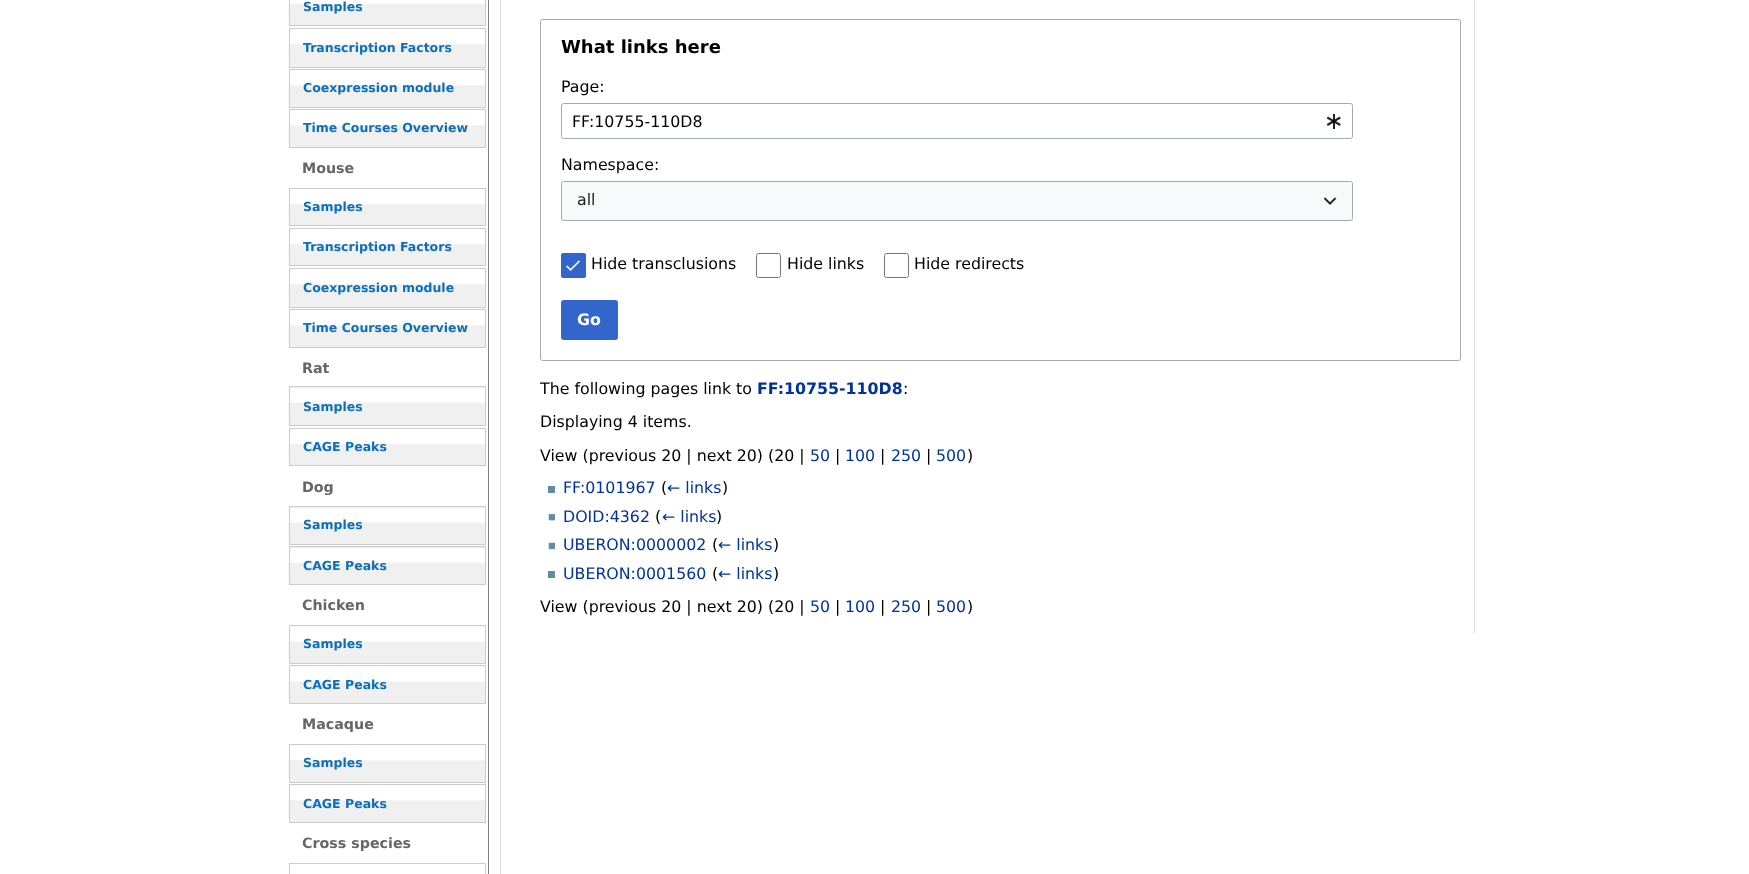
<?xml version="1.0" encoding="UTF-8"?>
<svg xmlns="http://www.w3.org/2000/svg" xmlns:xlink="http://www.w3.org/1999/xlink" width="1749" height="874">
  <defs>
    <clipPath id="clip1"><path d="M 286 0 h 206 v 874 h -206 z m 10 -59 h 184 c 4.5 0 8 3.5 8 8 v 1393 c 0 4.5 -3.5 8 -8 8 h -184 c -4.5 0 -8 -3.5 -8 -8 v -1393 c 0 -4.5 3.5 -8 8 -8 z" clip-rule="evenodd" /></clipPath>
  </defs>
  <rect width="100%" height="100%" fill="#ffffff" />
  <rect x="500" width="1" height="874" fill="#dddddd" />
  <g clip-path="url(#clip1)">
    <rect x="289" y="-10" width="200" height="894" rx="8" fill="#808080" filter="blur(0.5px)" />
  </g>
  <rect x="290" y="21" width="195" height="4" fill="#f0f0f0" />
  <image x="288" y="0" width="199" height="21" xlink:href="image1.png" />
  <rect x="289.5" y="-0.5" width="196" height="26" fill="none" stroke="#cccccc" />
  <rect x="290" y="61" width="195" height="6" fill="#f0f0f0" />
  <image x="288" y="29" width="199" height="32" xlink:href="image2.png" />
  <rect x="289.5" y="28.5" width="196" height="39" fill="none" stroke="#cccccc" />
  <rect x="290" y="70" width="195" height="37" fill="#f0f0f0" />
  <image x="288" y="70" width="199" height="32" xlink:href="image3.png" />
  <rect x="289.5" y="69.5" width="196" height="38" fill="none" stroke="#cccccc" />
  <rect x="290" y="110" width="195" height="37" fill="#f0f0f0" />
  <image x="288" y="110" width="199" height="32" xlink:href="image4.png" />
  <rect x="289.5" y="109.5" width="196" height="38" fill="none" stroke="#cccccc" />
  <rect x="290" y="221" width="195" height="4" fill="#f0f0f0" />
  <image x="288" y="189" width="199" height="32" xlink:href="image2.png" />
  <rect x="289.5" y="188.5" width="196" height="37" fill="none" stroke="#cccccc" />
  <rect x="290" y="261" width="195" height="4" fill="#f0f0f0" />
  <image x="288" y="229" width="199" height="32" xlink:href="image2.png" />
  <rect x="289.5" y="228.5" width="196" height="37" fill="none" stroke="#cccccc" />
  <rect x="290" y="301" width="195" height="6" fill="#f0f0f0" />
  <image x="288" y="269" width="199" height="32" xlink:href="image2.png" />
  <rect x="289.5" y="268.5" width="196" height="39" fill="none" stroke="#cccccc" />
  <rect x="290" y="310" width="195" height="37" fill="#f0f0f0" />
  <image x="288" y="310" width="199" height="32" xlink:href="image4.png" />
  <rect x="289.5" y="309.5" width="196" height="38" fill="none" stroke="#cccccc" />
  <rect x="290" y="387" width="195" height="38" fill="#f0f0f0" />
  <image x="288" y="388" width="199" height="32" xlink:href="image5.png" />
  <rect x="289.5" y="386.5" width="196" height="39" fill="none" stroke="#cccccc" />
  <rect x="290" y="461" width="195" height="4" fill="#f0f0f0" />
  <image x="288" y="429" width="199" height="32" xlink:href="image2.png" />
  <rect x="289.5" y="428.5" width="196" height="37" fill="none" stroke="#cccccc" />
  <rect x="290" y="507" width="195" height="37" fill="#f0f0f0" />
  <image x="288" y="508" width="199" height="32" xlink:href="image6.png" />
  <rect x="289.5" y="506.5" width="196" height="38" fill="none" stroke="#cccccc" />
  <rect x="290" y="547" width="195" height="37" fill="#f0f0f0" />
  <image x="288" y="548" width="199" height="32" xlink:href="image5.png" />
  <rect x="289.5" y="546.5" width="196" height="38" fill="none" stroke="#cccccc" />
  <rect x="290" y="626" width="195" height="37" fill="#f0f0f0" />
  <image x="288" y="626" width="199" height="33" xlink:href="image7.png" />
  <rect x="289.5" y="625.5" width="196" height="38" fill="none" stroke="#cccccc" />
  <rect x="290" y="666" width="195" height="37" fill="#f0f0f0" />
  <image x="288" y="666" width="199" height="33" xlink:href="image7.png" />
  <rect x="289.5" y="665.5" width="196" height="38" fill="none" stroke="#cccccc" />
  <rect x="290" y="745" width="195" height="37" fill="#f0f0f0" />
  <image x="288" y="745" width="199" height="32" xlink:href="image4.png" />
  <rect x="289.5" y="744.5" width="196" height="38" fill="none" stroke="#cccccc" />
  <rect x="290" y="785" width="195" height="37" fill="#f0f0f0" />
  <image x="288" y="785" width="199" height="32" xlink:href="image8.png" />
  <rect x="289.5" y="784.5" width="196" height="38" fill="none" stroke="#cccccc" />
  <rect x="289.5" y="863.5" width="196" height="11" fill="none" stroke="#cccccc" />
  <rect x="1474" width="1" height="633" fill="#dddddd" />
  <rect x="540.5" y="19.5" width="920" height="341" rx="2" fill="none" stroke="#a2a9b1" />
  <rect x="561.5" y="103.5" width="791" height="35" rx="2" fill="none" stroke="#a2a9b1" />
  <image x="1326" y="114" width="15" height="15" xlink:href="image9.png" />
  <rect x="561" y="181" width="792" height="40" fill="#f8f9fa" />
  <rect x="561.5" y="181.5" width="791" height="39" rx="2" fill="none" stroke="#a2a9b1" />
  <image x="1323" y="197" width="14" height="8" xlink:href="image10.png" />
  <rect x="561" y="253" width="25" height="25" rx="2.5" fill="#3366cc" />
  <image x="566" y="260" width="14" height="11" xlink:href="image11.png" />
  <rect x="561.5" y="253.5" width="24" height="24" rx="2" fill="none" stroke="#3366cc" />
  <rect x="756.5" y="253.5" width="24" height="24" rx="2" fill="none" stroke="#72777d" />
  <rect x="884.5" y="253.5" width="24" height="24" rx="2" fill="none" stroke="#72777d" />
  <rect x="561.5" y="300.5" width="56" height="39" rx="2" fill="#3366cc" stroke="#3366cc" />
  <rect x="548" y="486" width="7" height="7" fill="#638c9c" />
  <image x="548" y="513" width="7" height="8" xlink:href="image12.png" />
  <image x="548" y="542" width="7" height="8" xlink:href="image13.png" />
  <rect x="548" y="571" width="7" height="7" fill="#638c9c" />
  <text x="303" y="11" style="font-family: DejaVu Sans; font-size: 12.5px; font-weight: bold; fill: #0d6fb8">Samples</text>
  <text x="303" y="52" style="font-family: DejaVu Sans; font-size: 12.5px; font-weight: bold; fill: #0d6fb8">Transcription Factors</text>
  <text x="303" y="92" style="font-family: DejaVu Sans; font-size: 12.5px; font-weight: bold; fill: #0d6fb8">Coexpression module</text>
  <text x="303" y="132" style="font-family: DejaVu Sans; font-size: 12.5px; font-weight: bold; fill: #0d6fb8">Time Courses Overview</text>
  <text x="302" y="173" style="font-family: DejaVu Sans; font-size: 14.25px; font-weight: bold; fill: #666666">Mouse</text>
  <text x="303" y="211" style="font-family: DejaVu Sans; font-size: 12.5px; font-weight: bold; fill: #0d6fb8">Samples</text>
  <text x="303" y="251" style="font-family: DejaVu Sans; font-size: 12.5px; font-weight: bold; fill: #0d6fb8">Transcription Factors</text>
  <text x="303" y="292" style="font-family: DejaVu Sans; font-size: 12.5px; font-weight: bold; fill: #0d6fb8">Coexpression module</text>
  <text x="303" y="332" style="font-family: DejaVu Sans; font-size: 12.5px; font-weight: bold; fill: #0d6fb8">Time Courses Overview</text>
  <text x="302" y="373" style="font-family: DejaVu Sans; font-size: 14.25px; font-weight: bold; fill: #666666">Rat</text>
  <text x="303" y="411" style="font-family: DejaVu Sans; font-size: 12.5px; font-weight: bold; fill: #0d6fb8">Samples</text>
  <text x="303" y="451" style="font-family: DejaVu Sans; font-size: 12.5px; font-weight: bold; fill: #0d6fb8">CAGE Peaks</text>
  <text x="302" y="492" style="font-family: DejaVu Sans; font-size: 14.25px; font-weight: bold; fill: #666666">Dog</text>
  <text x="303" y="529" style="font-family: DejaVu Sans; font-size: 12.5px; font-weight: bold; fill: #0d6fb8">Samples</text>
  <text x="303" y="570" style="font-family: DejaVu Sans; font-size: 12.5px; font-weight: bold; fill: #0d6fb8">CAGE Peaks</text>
  <text x="302" y="610" style="font-family: DejaVu Sans; font-size: 14.25px; font-weight: bold; fill: #666666">Chicken</text>
  <text x="303" y="648" style="font-family: DejaVu Sans; font-size: 12.5px; font-weight: bold; fill: #0d6fb8">Samples</text>
  <text x="303" y="689" style="font-family: DejaVu Sans; font-size: 12.5px; font-weight: bold; fill: #0d6fb8">CAGE Peaks</text>
  <text x="302" y="729" style="font-family: DejaVu Sans; font-size: 14.25px; font-weight: bold; fill: #666666">Macaque</text>
  <text x="303" y="767" style="font-family: DejaVu Sans; font-size: 12.5px; font-weight: bold; fill: #0d6fb8">Samples</text>
  <text x="303" y="808" style="font-family: DejaVu Sans; font-size: 12.5px; font-weight: bold; fill: #0d6fb8">CAGE Peaks</text>
  <text x="302" y="848" style="font-family: DejaVu Sans; font-size: 14.25px; font-weight: bold; fill: #666666">Cross species</text>
  <text x="561" y="53" style="font-family: DejaVu Sans; font-size: 18px; font-weight: bold; fill: #000000">What links here</text>
  <text x="561" y="92" style="font-family: DejaVu Sans; font-size: 15.8px; fill: #000000">Page:</text>
  <text x="572" y="127" style="font-family: DejaVu Sans; font-size: 15.8px; fill: #000000">FF:10755-110D8</text>
  <text x="561" y="170" style="font-family: DejaVu Sans; font-size: 15.8px; fill: #000000">Namespace:</text>
  <text x="577" y="205" style="font-family: DejaVu Sans; font-size: 15.8px; fill: #202122">all</text>
  <text x="591" y="269" style="font-family: DejaVu Sans; font-size: 15.8px; fill: #000000">Hide transclusions</text>
  <text x="787" y="269" style="font-family: DejaVu Sans; font-size: 15.8px; fill: #000000">Hide links</text>
  <text x="914" y="269" style="font-family: DejaVu Sans; font-size: 15.8px; fill: #000000">Hide redirects</text>
  <text x="577" y="325" style="font-family: DejaVu Sans; font-size: 15.8px; font-weight: bold; fill: #ffffff">Go</text>
  <text x="540" y="394" style="font-family: DejaVu Sans; font-size: 15.8px; fill: #000000">The following pages link to</text>
  <text x="757" y="394" style="font-family: DejaVu Sans; font-size: 15.8px; font-weight: bold; fill: #003399">FF:10755-110D8</text>
  <text x="903" y="394" style="font-family: DejaVu Sans; font-size: 15.8px; fill: #000000">:</text>
  <text x="540" y="427" style="font-family: DejaVu Sans; font-size: 15.8px; fill: #000000">Displaying 4 items.</text>
  <text x="540" y="461" style="font-family: DejaVu Sans; font-size: 15.8px; fill: #000000">View (previous 20 | next 20) (20 |</text>
  <text x="810" y="461" style="font-family: DejaVu Sans; font-size: 15.8px; fill: #003399">50</text>
  <text x="835" y="461" style="font-family: DejaVu Sans; font-size: 15.8px; fill: #000000">|</text>
  <text x="845" y="461" style="font-family: DejaVu Sans; font-size: 15.8px; fill: #003399">100</text>
  <text x="880" y="461" style="font-family: DejaVu Sans; font-size: 15.8px; fill: #000000">|</text>
  <text x="891" y="461" style="font-family: DejaVu Sans; font-size: 15.8px; fill: #003399">250</text>
  <text x="926" y="461" style="font-family: DejaVu Sans; font-size: 15.8px; fill: #000000">|</text>
  <text x="936" y="461" style="font-family: DejaVu Sans; font-size: 15.8px; fill: #003399">500</text>
  <text x="967" y="461" style="font-family: DejaVu Sans; font-size: 15.8px; fill: #000000">)</text>
  <text x="563" y="493" style="font-family: DejaVu Sans; font-size: 15.8px; fill: #003399">FF:0101967</text>
  <text x="661" y="493" style="font-family: DejaVu Sans; font-size: 15.8px; fill: #000000">(</text>
  <text x="667" y="493" style="font-family: DejaVu Sans; font-size: 15.8px; fill: #003399">← links</text>
  <text x="722" y="493" style="font-family: DejaVu Sans; font-size: 15.8px; fill: #000000">)</text>
  <text x="563" y="522" style="font-family: DejaVu Sans; font-size: 15.8px; fill: #003399">DOID:4362</text>
  <text x="655" y="522" style="font-family: DejaVu Sans; font-size: 15.8px; fill: #000000">(</text>
  <text x="662" y="522" style="font-family: DejaVu Sans; font-size: 15.8px; fill: #003399">← links</text>
  <text x="716" y="522" style="font-family: DejaVu Sans; font-size: 15.8px; fill: #000000">)</text>
  <text x="563" y="550" style="font-family: DejaVu Sans; font-size: 15.8px; fill: #003399">UBERON:0000002</text>
  <text x="712" y="550" style="font-family: DejaVu Sans; font-size: 15.8px; fill: #000000">(</text>
  <text x="718" y="550" style="font-family: DejaVu Sans; font-size: 15.8px; fill: #003399">← links</text>
  <text x="773" y="550" style="font-family: DejaVu Sans; font-size: 15.8px; fill: #000000">)</text>
  <text x="563" y="579" style="font-family: DejaVu Sans; font-size: 15.8px; fill: #003399">UBERON:0001560</text>
  <text x="712" y="579" style="font-family: DejaVu Sans; font-size: 15.8px; fill: #000000">(</text>
  <text x="718" y="579" style="font-family: DejaVu Sans; font-size: 15.8px; fill: #003399">← links</text>
  <text x="773" y="579" style="font-family: DejaVu Sans; font-size: 15.8px; fill: #000000">)</text>
  <text x="540" y="612" style="font-family: DejaVu Sans; font-size: 15.8px; fill: #000000">View (previous 20 | next 20) (20 |</text>
  <text x="810" y="612" style="font-family: DejaVu Sans; font-size: 15.8px; fill: #003399">50</text>
  <text x="835" y="612" style="font-family: DejaVu Sans; font-size: 15.8px; fill: #000000">|</text>
  <text x="845" y="612" style="font-family: DejaVu Sans; font-size: 15.8px; fill: #003399">100</text>
  <text x="880" y="612" style="font-family: DejaVu Sans; font-size: 15.8px; fill: #000000">|</text>
  <text x="891" y="612" style="font-family: DejaVu Sans; font-size: 15.8px; fill: #003399">250</text>
  <text x="926" y="612" style="font-family: DejaVu Sans; font-size: 15.8px; fill: #000000">|</text>
  <text x="936" y="612" style="font-family: DejaVu Sans; font-size: 15.8px; fill: #003399">500</text>
  <text x="967" y="612" style="font-family: DejaVu Sans; font-size: 15.8px; fill: #000000">)</text>
</svg>
